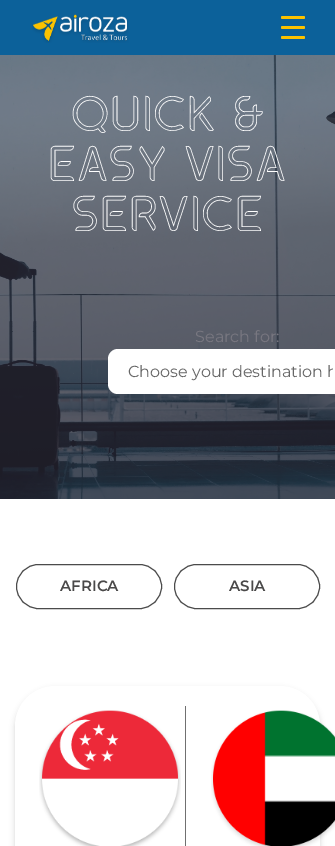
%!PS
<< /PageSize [335 846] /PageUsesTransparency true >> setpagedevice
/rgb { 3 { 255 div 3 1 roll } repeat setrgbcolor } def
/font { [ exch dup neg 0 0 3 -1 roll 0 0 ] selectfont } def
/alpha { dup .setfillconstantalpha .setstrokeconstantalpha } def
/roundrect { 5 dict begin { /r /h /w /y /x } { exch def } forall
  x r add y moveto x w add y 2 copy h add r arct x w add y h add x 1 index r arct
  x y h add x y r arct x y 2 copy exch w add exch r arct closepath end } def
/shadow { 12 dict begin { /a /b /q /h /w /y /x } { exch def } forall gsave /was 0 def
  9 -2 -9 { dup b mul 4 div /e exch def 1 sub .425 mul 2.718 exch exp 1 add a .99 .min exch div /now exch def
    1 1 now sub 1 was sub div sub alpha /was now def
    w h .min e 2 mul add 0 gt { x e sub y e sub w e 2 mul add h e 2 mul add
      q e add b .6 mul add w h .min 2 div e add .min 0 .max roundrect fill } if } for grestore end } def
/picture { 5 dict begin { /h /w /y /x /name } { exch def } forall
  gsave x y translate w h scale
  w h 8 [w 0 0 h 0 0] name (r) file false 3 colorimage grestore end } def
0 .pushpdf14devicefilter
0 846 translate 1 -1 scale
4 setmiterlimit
255 255 255 rgb
0 0 335 846 rectfill
12 97 154 rgb
0 0 335 55 rectfill
(img/1.rgb) 32 14 97 29 picture
252 194 0 rgb
281 26 24 3 1.5 roundrect fill
281 16 24 3 1.5 roundrect fill
281 36 24 3 1.5 roundrect fill
(img/2.rgb) 0 55 335 444 picture
255 255 255 rgb
118 349 moveto 335 349 lineto 335 394 lineto 118 394 lineto 112.5 394 108 389.5 108 384 curveto 108 359 lineto 108 353.5 112.5 349 118 349 curveto closepath fill
75 75 75 rgb
16.5 564.5 145 44 22 roundrect stroke
174.5 564.5 145 44 22 roundrect stroke
0 0 0 rgb
15 689 305 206 40 3 0.16 shadow
255 255 255 rgb
15 686 305 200 40 roundrect fill
112 112 112 rgb
185 706 1 140 rectfill
(img/3.rgb) 39 710 142 136 picture
(img/4.rgb) 211 710 124 136 picture
/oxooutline-Regular 48 font
255 255 255 rgb
[
  [(QUICK &) 71 131]
  [(EASY VISA) 48 181]
  [(SERVICE) 71 231]
] { aload pop moveto show } forall
/Montserrat-Regular 16 font
120 119 128 rgb
195 342 moveto (Search for:) show
gsave
128 362 205 19 rectclip
101 101 101 rgb
128 377 moveto (Choose your destination h) show
grestore
/Montserrat-SemiBold 15 font
74 73 73 rgb
60 591 moveto (AFRICA) show
229 591 moveto (ASIA) show
.poppdf14devicefilter showpage
